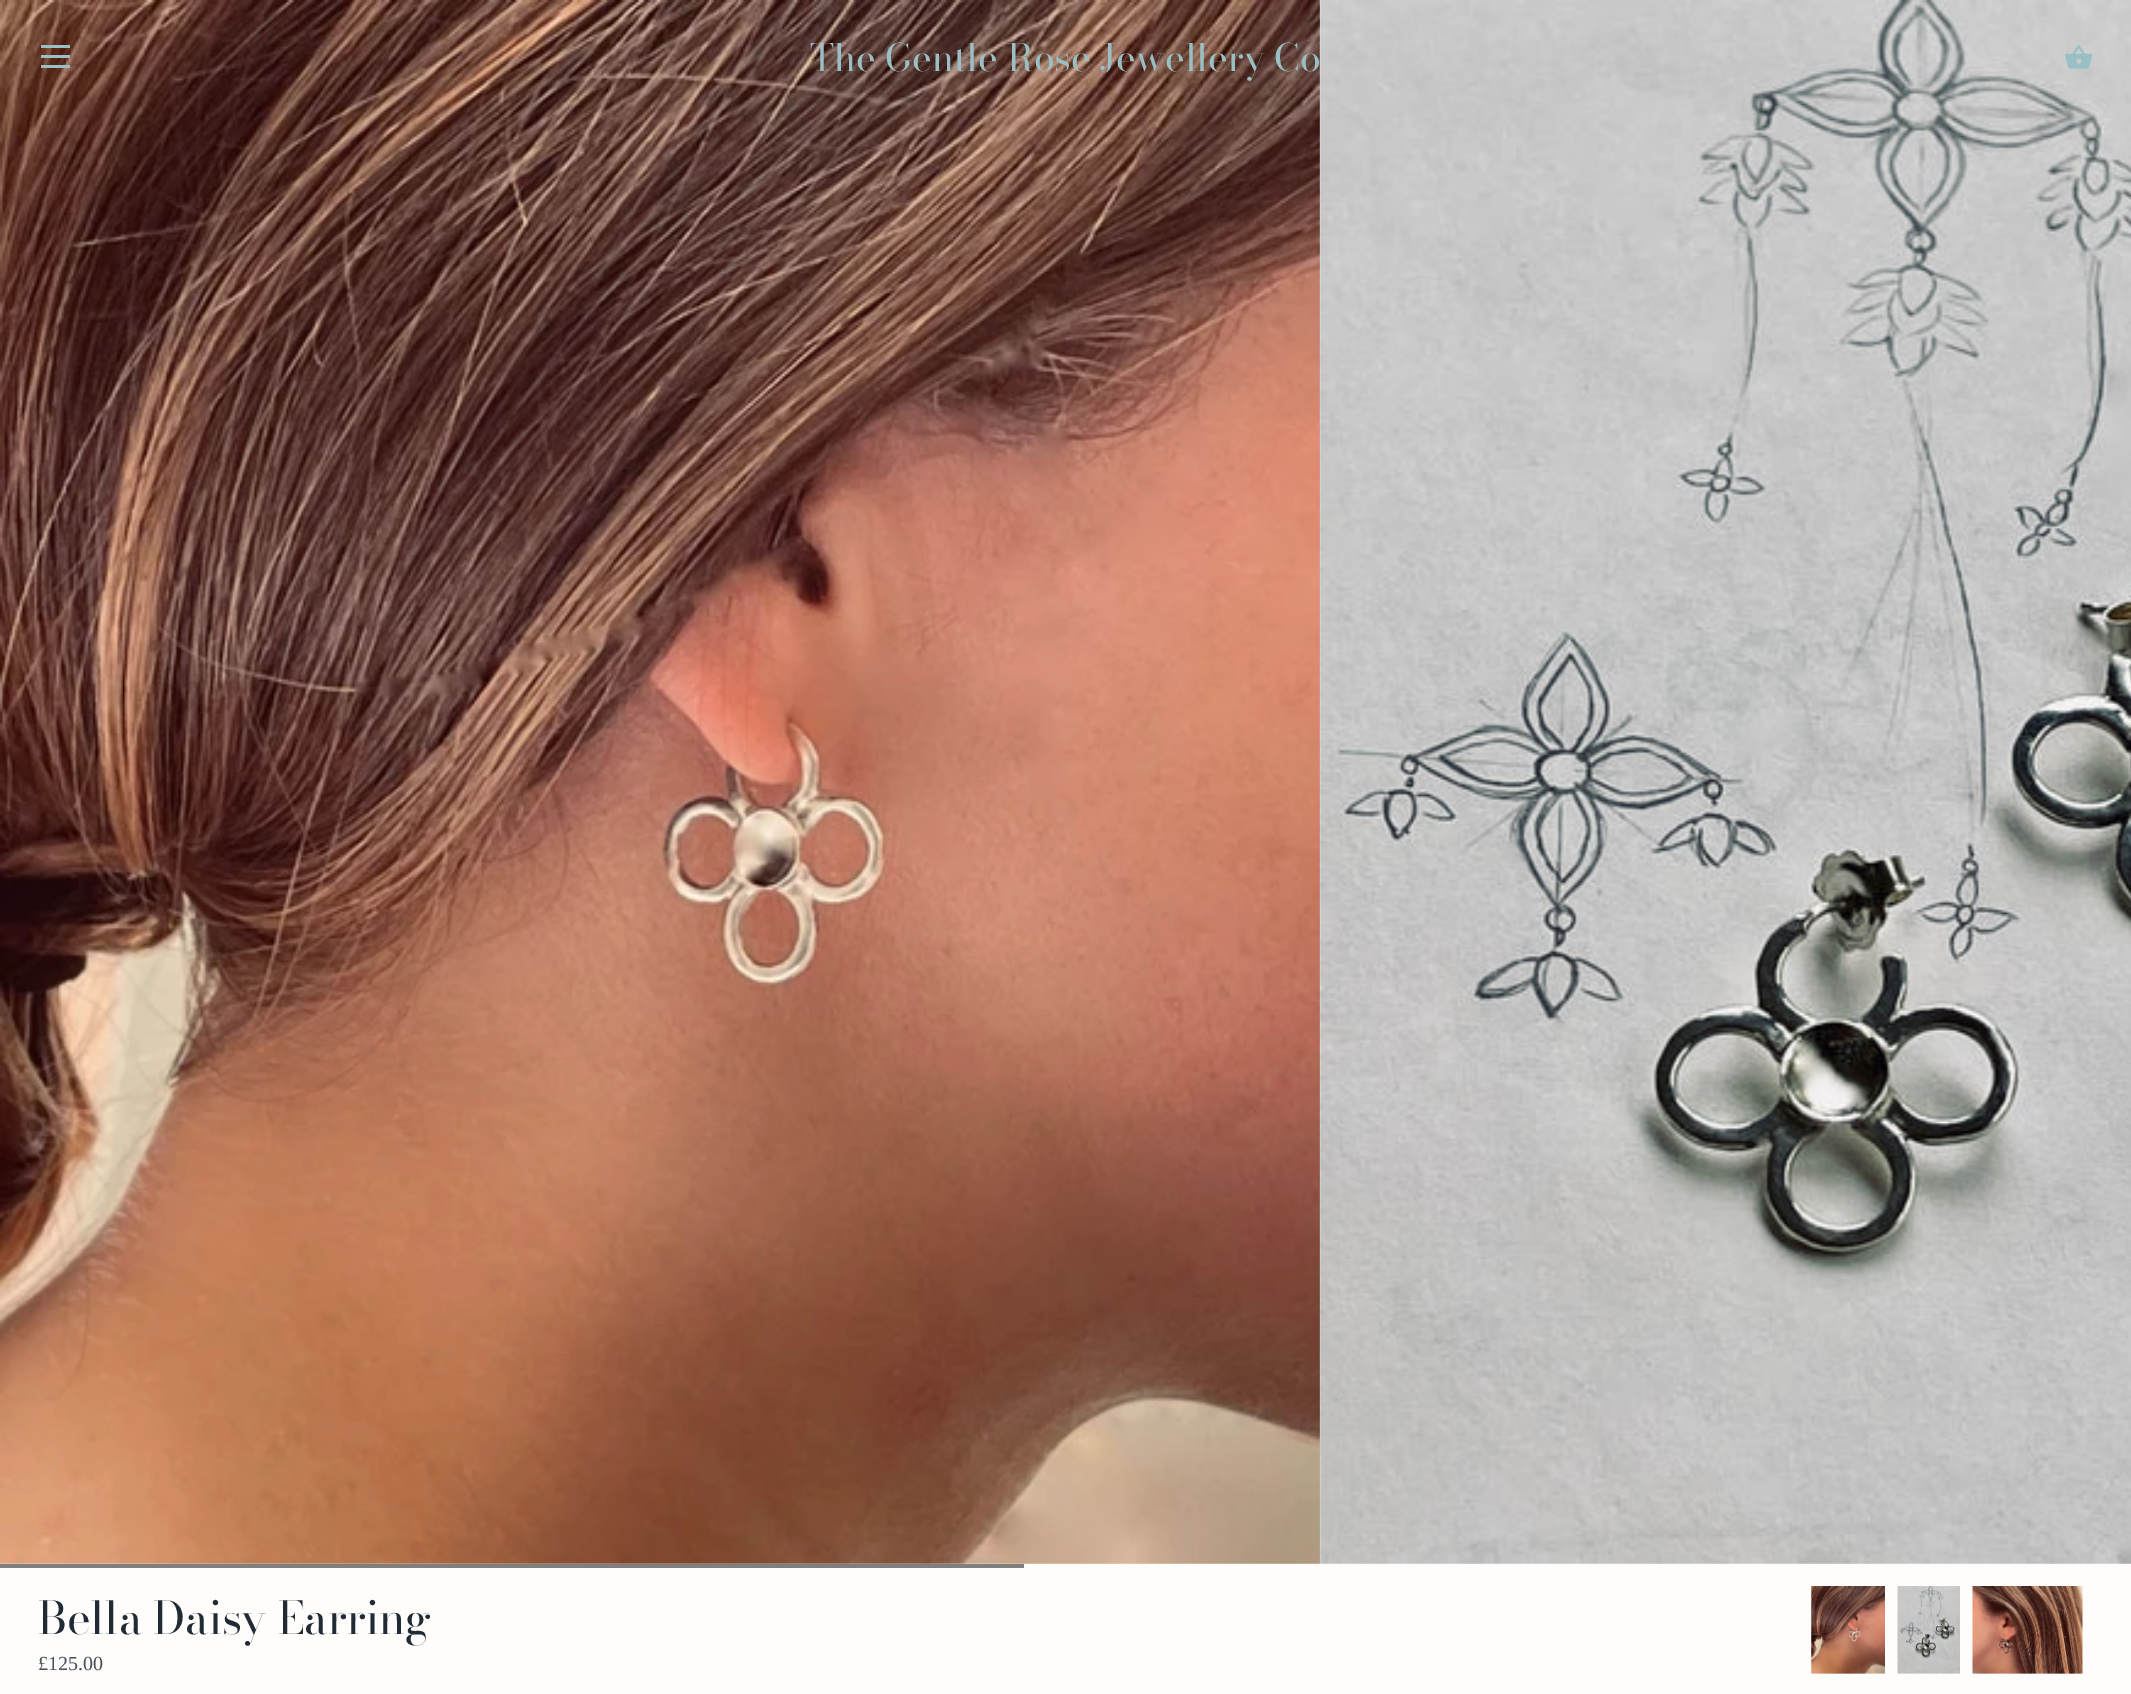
%!PS
<< /PageSize [2131 1694] >> setpagedevice
/rgb { 3 { 255 div 3 1 roll } repeat setrgbcolor } def
/font { [ exch dup neg 0 0 3 -1 roll 0 0 ] selectfont } def
/picture { 5 dict begin { /h /w /y /x /name } { exch def } forall
  gsave x y translate w h scale
  w h 8 [w 0 0 h 0 0] name (r) file false 3 colorimage grestore end } def
0 1694 translate 1 -1 scale
4 setmiterlimit
255 253 251 rgb
0 0 2131 1694 rectfill
(img/2.rgb) 0 0 1320 1564 picture
[
  [41 45 29 3 154 192 197]
  [41 55 29 3 154 192 197]
  [41 65 29 3 154 192 197]
] { aload pop rgb rectfill } forall
(img/3.rgb) 1319 0 812 1564 picture
(img/1.rgb) 2065 45 28 24 picture
128 127 127 rgb
0 1564 1024 4 rectfill
(img/4.rgb) 1811 1586 74 88 picture
(img/5.rgb) 1897 1586 63 88 picture
(img/6.rgb) 1972 1586 111 88 picture
/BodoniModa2-Regular 37.5 font
154 192 197 rgb
810 71 moveto (The Gentle Rose Jewellery Co) show
/BodoniModa-Regular 45 font
33 43 54 rgb
38 1634 moveto (Bella Daisy Earring) show
/LiberationSerif-Regular 20 font
69 79 91 rgb
38 1670 moveto (£125.00) show
showpage
